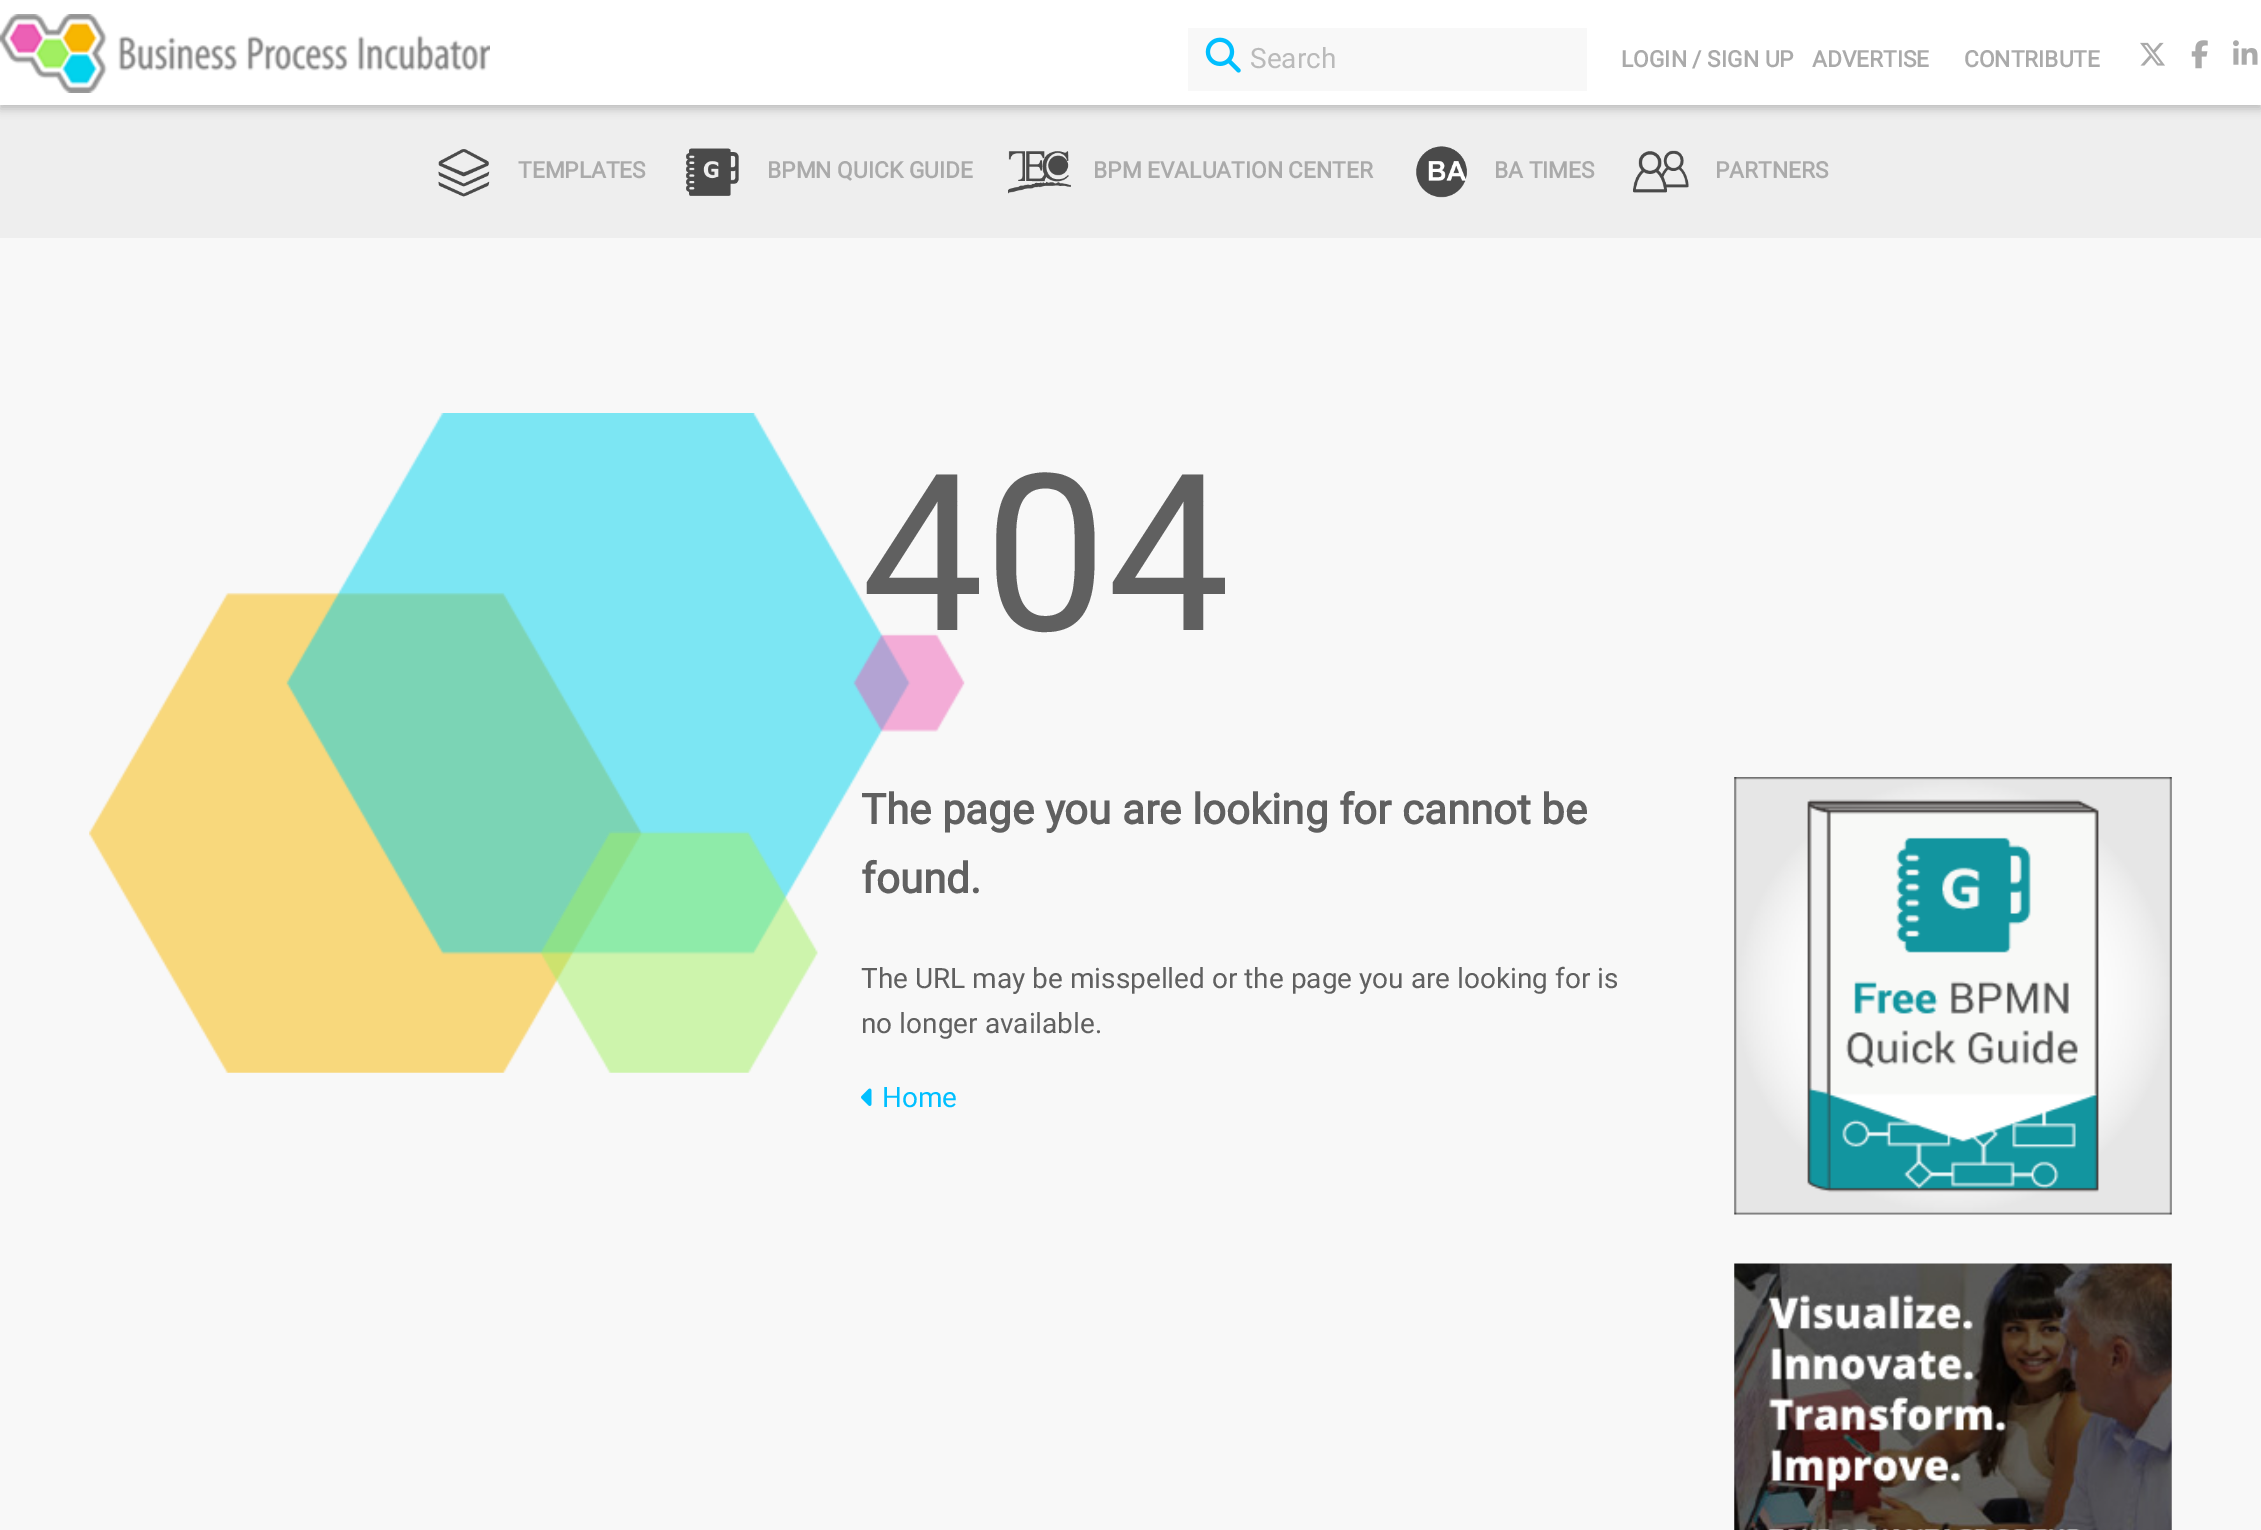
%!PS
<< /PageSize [2261 1530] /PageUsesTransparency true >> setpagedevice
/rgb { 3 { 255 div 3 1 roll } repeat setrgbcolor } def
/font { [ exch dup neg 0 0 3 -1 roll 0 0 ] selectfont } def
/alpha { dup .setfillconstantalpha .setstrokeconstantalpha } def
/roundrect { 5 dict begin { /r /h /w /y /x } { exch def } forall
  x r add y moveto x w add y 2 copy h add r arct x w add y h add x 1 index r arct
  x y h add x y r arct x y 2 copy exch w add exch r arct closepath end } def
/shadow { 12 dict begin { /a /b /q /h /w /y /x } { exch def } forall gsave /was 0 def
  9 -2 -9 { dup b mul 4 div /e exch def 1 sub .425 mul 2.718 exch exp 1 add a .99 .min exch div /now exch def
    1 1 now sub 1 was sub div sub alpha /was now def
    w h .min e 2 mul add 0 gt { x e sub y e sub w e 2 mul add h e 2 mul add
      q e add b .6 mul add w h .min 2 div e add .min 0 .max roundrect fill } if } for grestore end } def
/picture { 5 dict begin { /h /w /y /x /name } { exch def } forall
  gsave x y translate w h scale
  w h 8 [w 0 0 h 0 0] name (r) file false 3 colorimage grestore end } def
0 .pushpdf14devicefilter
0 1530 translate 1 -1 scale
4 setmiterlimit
248 248 248 rgb
0 0 2261 1530 rectfill
238 238 238 rgb
0 105 2261 133 rectfill
0 0 0 rgb
0 4 2261 105 0 4.5 0.2 shadow
255 255 255 rgb
0 0 2261 105 rectfill
(img/1.rgb) 0 14 490 79 picture
248 248 248 rgb
1188 28 399 63 rectfill
(img/2.rgb) 1205 37 36 36 picture
(img/3.rgb) 2140 42 25 24 picture
(img/4.rgb) 2191 40 17 29 picture
(img/5.rgb) 2233 40 25 25 picture
(img/6.rgb) 438 149 52 48 picture
(img/7.rgb) 686 148 53 48 picture
(img/8.rgb) 1008 151 63 43 picture
(img/9.rgb) 1416 146 51 52 picture
(img/10.rgb) 1633 150 56 43 picture
(img/11.rgb) 89 413 876 660 picture
(img/12.rgb) 861 1088 11 18 picture
(img/13.rgb) 1734 777 438 438 picture
(img/14.rgb) 1734 1263 438 267 picture
/Roboto-Regular 28 font
186 186 186 rgb
1250 68 moveto (Search) show
/Roboto-Bold 22.75 font
170 170 170 rgb
[
  [(LOGIN / SIGN UP) 1621 67]
  [(ADVERTISE) 1812 67]
  [(CONTRIBUTE) 1964 67]
  [(TEMPLATES) 518 178]
  [(BPMN QUICK GUIDE) 767 178]
  [(BPM EVALUATION CENTER) 1093 178]
  [(BA TIMES) 1494 178]
  [(PARTNERS) 1715 178]
] { aload pop moveto show } forall
/Roboto-Regular 219 font
96 96 96 rgb
861 630 moveto (404) show
/Roboto-Bold 42 font
861 824 moveto (The page you are looking for cannot be) show
861 893 moveto (found.) show
/Roboto-Regular 28 font
861 988 moveto (The URL may be misspelled or the page you are looking for is) show
861 1033 moveto (no longer available.) show
0 191 255 rgb
882 1107 moveto (Home) show
.poppdf14devicefilter showpage
